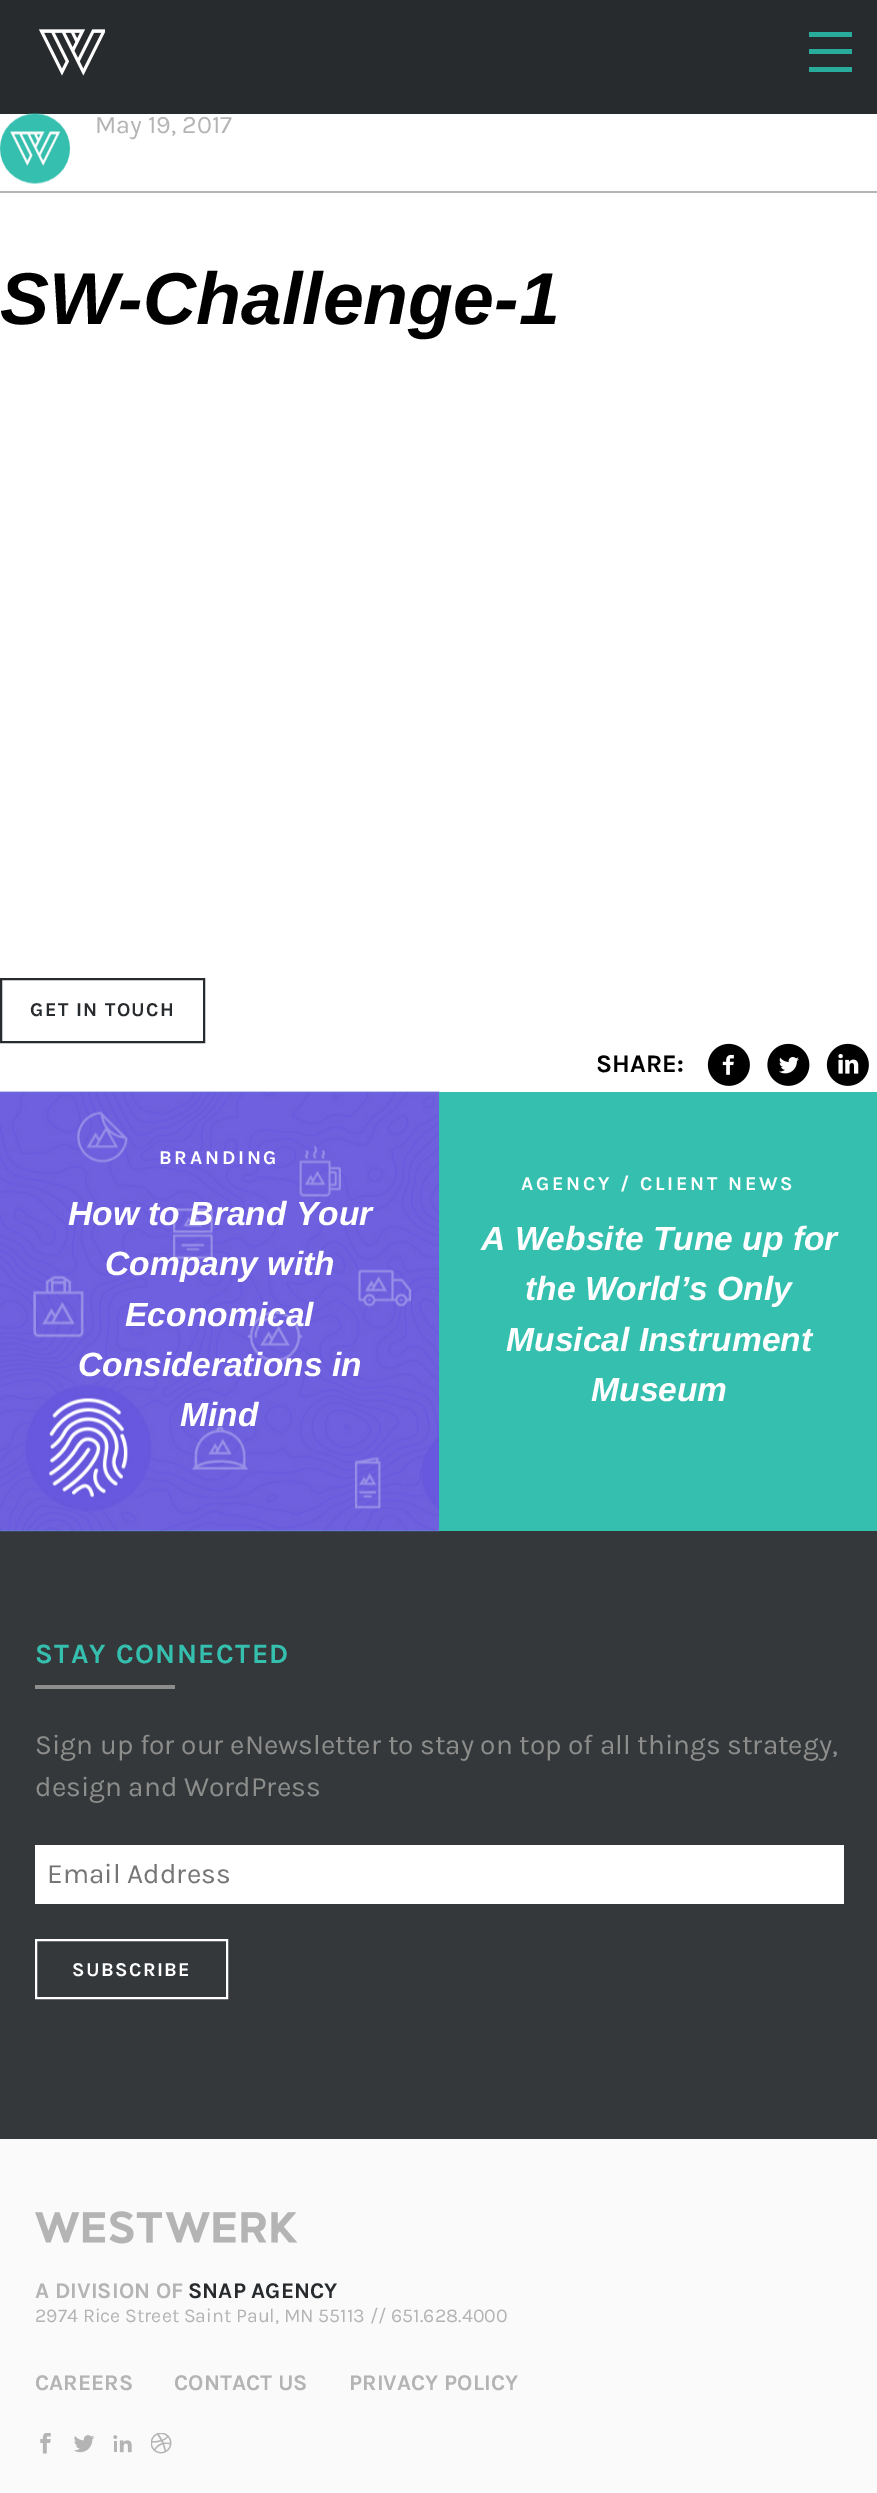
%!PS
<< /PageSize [877 2493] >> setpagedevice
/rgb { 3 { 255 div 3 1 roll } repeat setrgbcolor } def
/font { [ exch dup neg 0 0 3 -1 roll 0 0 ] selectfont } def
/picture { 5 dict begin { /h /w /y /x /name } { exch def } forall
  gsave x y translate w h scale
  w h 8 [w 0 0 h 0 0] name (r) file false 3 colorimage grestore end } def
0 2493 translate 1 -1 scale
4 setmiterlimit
255 255 255 rgb
0 0 877 2493 rectfill
40 43 46 rgb
0 0 877 114 rectfill
(img/1.rgb) 38 29 67 47 picture
[
  [809 32 43 5 41 172 156]
  [809 49 43 5 41 172 156]
  [809 67 43 5 41 172 156]
] { aload pop rgb rectfill } forall
(img/2.rgb) 0 113 70 71 picture
180 180 180 rgb
0 191 877 2 rectfill
40 43 46 rgb
2 setlinewidth
1 979 203 63 rectstroke
(img/3.rgb) 707 1043 43 43 picture
(img/4.rgb) 767 1043 43 43 picture
(img/5.rgb) 826 1043 43 43 picture
53 56 59 rgb
0 1531 877 608 rectfill
(img/6.rgb) 0 1091 440 441 picture
[
  [439 1092 438 439 53 191 174]
  [35 1685 140 4 141 141 140]
  [35 1845 809 59 255 255 255]
] { aload pop rgb rectfill } forall
36 1940 191 58 rectstroke
250 250 250 rgb
0 2139 877 354 rectfill
(img/7.rgb) 35 2211 263 33 picture
(img/8.rgb) 40 2433 11 21 picture
(img/9.rgb) 74 2435 21 18 picture
(img/10.rgb) 113 2435 19 18 picture
(img/11.rgb) 151 2433 21 21 picture
/Karla-Regular 25.25 font
180 180 180 rgb
95 133 moveto (May 19, 2017) show
/LiberationSans-BoldItalic 73.5 font
0 0 0 rgb
0 324 moveto (SW-Challenge-1) show
/Karla-Bold 19.6 font
40 43 46 rgb
30 1016 moveto 1.4 0 (GET IN TOUCH) ashow
/Karla-Bold 25.25 font
0 0 0 rgb
596 1072 moveto (SHARE:) show
/Karla-Bold 19.6 font
255 255 255 rgb
159 1164 moveto 2.75 0 (BRANDING) ashow
/LiberationSans-BoldItalic 33.6 font
[
  [(How to Brand Your) 68 1225]
  [(Company with) 105 1275]
  [(Economical) 125 1326]
  [(Considerations in) 78 1376]
  [(Mind) 180 1426]
] { aload pop moveto show } forall
/Karla-Bold 19.6 font
521 1190 moveto 2.75 0 (AGENCY / CLIENT NEWS) ashow
/LiberationSans-BoldItalic 33.6 font
[
  [(A Website Tune up for) 481 1250]
  [(the World’s Only) 525 1300]
  [(Musical Instrument) 506 1351]
  [(Museum) 591 1401]
] { aload pop moveto show } forall
/Karla-Bold 28 font
53 191 174 rgb
35 1663 moveto 1.4 0 (STAY CONNECTED) ashow
/Karla-Regular 28 font
141 141 140 rgb
35 1754 moveto (Sign up for our eNewsletter to stay on top of all things strategy,) show
35 1796 moveto (design and WordPress) show
117 117 117 rgb
47 1883 moveto (Email Address) show
/Karla-Bold 19.6 font
255 255 255 rgb
72 1976 moveto 1.4 0 (SUBSCRIBE) ashow
/Karla-Bold 22.5 font
180 180 180 rgb
35 2298 moveto (A DIVISION OF) show
40 43 46 rgb
188 2298 moveto (SNAP AGENCY) show
/Karla-Regular 19.6 font
180 180 180 rgb
35 2322 moveto (2974 Rice Street Saint Paul, MN 55113 // 651.628.4000) show
/Karla-Bold 22.5 font
[
  [(CAREERS) 35 2390]
  [(CONTACT US) 174 2390]
  [(PRIVACY POLICY) 349 2390]
] { aload pop moveto show } forall
showpage
